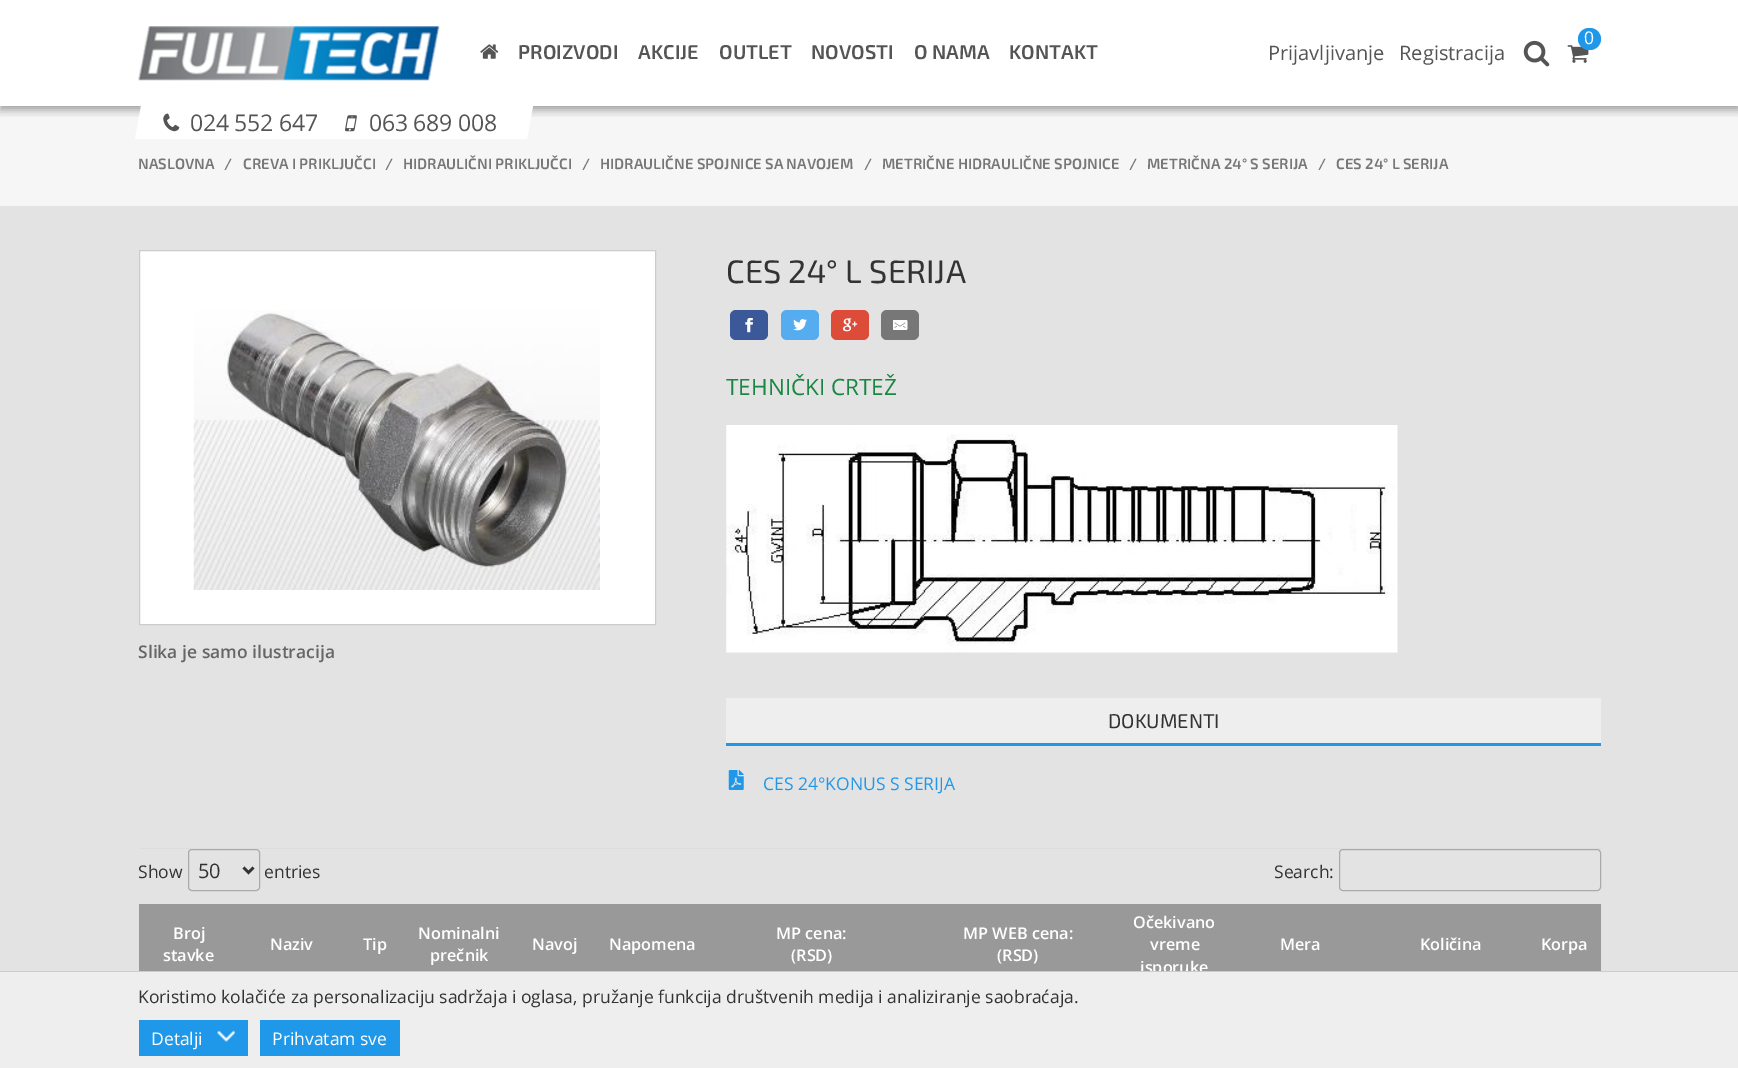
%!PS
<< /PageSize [1738 1068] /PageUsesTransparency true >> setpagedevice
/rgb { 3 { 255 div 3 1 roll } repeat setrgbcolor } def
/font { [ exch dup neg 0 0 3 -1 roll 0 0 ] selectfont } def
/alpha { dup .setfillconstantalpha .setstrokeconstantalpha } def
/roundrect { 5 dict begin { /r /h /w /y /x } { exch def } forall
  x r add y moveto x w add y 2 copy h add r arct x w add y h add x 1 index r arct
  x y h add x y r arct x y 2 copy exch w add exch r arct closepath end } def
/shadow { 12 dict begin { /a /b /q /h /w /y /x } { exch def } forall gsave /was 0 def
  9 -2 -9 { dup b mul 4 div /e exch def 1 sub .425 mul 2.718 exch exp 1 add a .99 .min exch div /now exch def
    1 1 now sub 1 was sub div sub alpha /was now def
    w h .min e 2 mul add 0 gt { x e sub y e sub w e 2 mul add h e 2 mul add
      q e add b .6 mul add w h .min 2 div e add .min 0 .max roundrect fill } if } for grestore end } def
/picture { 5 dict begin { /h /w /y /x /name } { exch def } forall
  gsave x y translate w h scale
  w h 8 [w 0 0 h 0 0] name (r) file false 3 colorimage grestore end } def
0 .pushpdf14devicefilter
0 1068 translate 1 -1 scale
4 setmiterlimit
255 255 255 rgb
0 0 1738 1068 rectfill
246 246 246 rgb
0 106 1738 100 rectfill
gsave
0 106 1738 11 rectclip
0 0 0 rgb
0 4 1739 106 0 4.5 0.35 shadow
grestore
(img/1.rgb) 138 26 302 55 picture
(img/2.rgb) 1567 45 22 18 picture
32 152 233 rgb
1578 28 23 22 11 roundrect fill
(img/3.rgb) 1523 40 27 27 picture
255 255 255 rgb
141 106 moveto 533 106 lineto 527 139 lineto 135 139 lineto closepath fill
(img/4.rgb) 163 113 17 19 picture
(img/5.rgb) 345 115 12 17 picture
(img/6.rgb) 480 44 19 15 picture
227 227 227 rgb
0 206 1738 765 rectfill
255 255 255 rgb
139.5 250.5 moveto 655.5 250.5 lineto 655.5 624.5 lineto 139.5 624.5 lineto closepath gsave fill grestore
204 204 204 rgb
stroke
(img/7.rgb) 193 310 407 280 picture
59 89 152 rgb
730 310 38 30 6 roundrect fill
(img/8.rgb) 745 318 8 15 picture
85 172 238 rgb
781 310 38 30 6 roundrect fill
(img/9.rgb) 793 319 14 12 picture
221 75 57 rgb
831 310 38 30 6 roundrect fill
(img/10.rgb) 843 318 15 14 picture
119 119 119 rgb
881 310 38 30 6 roundrect fill
(img/11.rgb) 893 320 15 10 picture
(img/12.rgb) 726 425 672 228 picture
238 238 238 rgb
726 698 875 45 rectfill
32 152 233 rgb
726 743 875 3 rectfill
(img/13.rgb) 728 770 16 20 picture
221 221 221 rgb
139 848 1462 1 rectfill
170 170 170 rgb
188.5 849.5 71 41 3.5 roundrect stroke
51 51 51 rgb
2.5 setlinewidth
243.5 867.5 moveto 248.5 872.5 lineto 253.5 867.5 lineto stroke
170 170 170 rgb
1 setlinewidth
1339.5 849.5 261 41 3.5 roundrect stroke
153 153 153 rgb
139 904 1462 67 rectfill
/OpenSans-Regular 17.5 font
255 255 255 rgb
1584 44 moveto (0) show
/OpenSans-Regular 23 font
85 85 85 rgb
190 131 moveto -0.25 0 (024 552 647) ashow
369 131 moveto -0.25 0 (063 689 008) ashow
/Exo2-SemiBold 20 font
[
  [(PROIZVODI) 518 59]
  [(AKCIJE) 638 59]
  [(OUTLET) 719 59]
  [(NOVOSTI) 811 59]
  [(O NAMA) 914 59]
  [(KONTAKT) 1009 59]
] { aload pop moveto show } forall
/OpenSans-Regular 20 font
1268 60 moveto (Prijavljivanje) show
1399 60 moveto (Registracija) show
/Exo2-SemiBold 15 font
119 119 119 rgb
[
  [(NASLOVNA) 138 169]
  [(/) 224 169]
  [(CREVA I PRIKLJUČCI) 243 169]
  [(/) 385 169]
  [(HIDRAULIČNI PRIKLJUČCI) 403 169]
  [(/) 582 169]
  [(HIDRAULIČNE SPOJNICE SA NAVOJEM) 600 169]
  [(/) 864 169]
  [(METRIČNE HIDRAULIČNE SPOJNICE) 882 169]
  [(/) 1129 169]
  [(METRIČNA 24° S SERIJA) 1147 169]
  [(/) 1318 169]
  [(CES 24° L SERIJA) 1336 169]
] { aload pop moveto show } forall
/OpenSans-SemiBold 17.5 font
102 102 102 rgb
138 658 moveto (Slika je samo ilustracija) show
/Exo2-Regular 32.5 font
51 51 51 rgb
726 283 moveto (CES 24° L SERIJA) show
/OpenSans-Regular 22.5 font
25 134 65 rgb
726 395 moveto (TEHNIČKI CRTEŽ) show
/Exo2-Regular 20 font
51 51 51 rgb
1108 728 moveto (DOKUMENTI) show
/OpenSans-Regular 17.5 font
32 152 233 rgb
763 790 moveto (CES 24°KONUS S SERIJA) show
51 51 51 rgb
138 878 moveto (Show) show
/OpenSans-Regular 20 font
198 878 moveto (50) show
/OpenSans-Regular 17.5 font
264 878 moveto (entries) show
1274 878 moveto (Search:) show
/OpenSans-SemiBold 16.25 font
255 255 255 rgb
[
  [(Broj) 173 939]
  [(stavke) 163 961]
  [(Naziv) 270 950]
  [(Tip) 363 950]
  [(Nominalni) 418 939]
  [(prečnik) 430 961]
  [(Navoj) 532 950]
  [(Napomena) 609 950]
  [(MP cena:) 776 939]
  [(\(RSD\)) 791 961]
  [(MP WEB cena:) 963 939]
  [(\(RSD\)) 997 961]
  [(Očekivano) 1133 928]
  [(vreme) 1150 950]
  [(isporuke) 1140 973]
  [(Mera) 1280 950]
  [(Količina) 1420 950]
  [(Korpa) 1541 950]
] { aload pop moveto show } forall
238 238 238 rgb
0 972 1738 96 rectfill
204 204 204 rgb
0 971 1738 1 rectfill
/OpenSans-Regular 17.5 font
51 51 51 rgb
138 1003 moveto (Koristimo kolačiće za personalizaciju sadržaja i oglasa, pružanje funkcija društvenih medija i analiziranje saobraćaja.) show
32 152 233 rgb
139 1020 109 36 rectfill
255 255 255 rgb
151 1045 moveto (Detalji) show
(img/14.rgb) 217 1030 19 12 picture
32 152 233 rgb
260 1020 140 36 rectfill
255 255 255 rgb
272 1045 moveto (Prihvatam sve) show
.poppdf14devicefilter showpage
